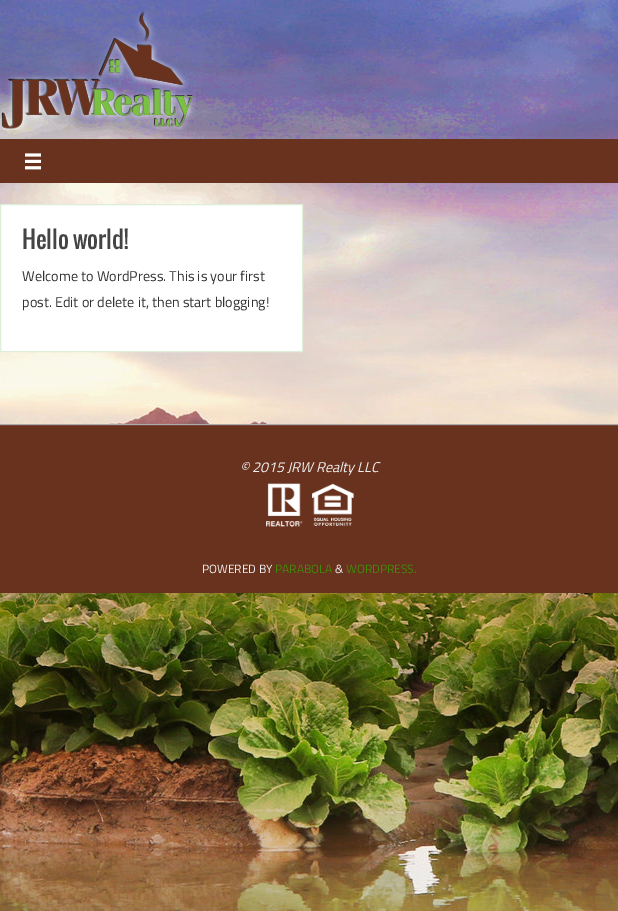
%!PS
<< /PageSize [618 911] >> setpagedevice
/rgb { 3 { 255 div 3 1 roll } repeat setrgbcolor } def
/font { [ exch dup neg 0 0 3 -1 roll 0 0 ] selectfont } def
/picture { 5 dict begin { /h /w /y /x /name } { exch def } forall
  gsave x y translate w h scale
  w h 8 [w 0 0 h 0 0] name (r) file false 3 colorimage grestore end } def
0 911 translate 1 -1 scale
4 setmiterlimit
255 255 255 rgb
0 0 618 911 rectfill
(img/1.rgb) 0 0 618 911 picture
(img/2.rgb) 0 11 196 119 picture
105 50 30 rgb
0 139 618 44 rectfill
(img/3.rgb) 25 153 16 17 picture
255 255 255 rgb
0.5 204.5 moveto 302.5 204.5 lineto 302.5 351.5 lineto 0.5 351.5 lineto closepath gsave fill grestore
223 238 215 rgb
stroke
[
  [0 424 618 1 170 170 170]
  [0 426 618 167 105 50 30]
  [0 425 618 1 120 71 53]
] { aload pop rgb rectfill } forall
(img/4.rgb) 266 483 88 44 picture
/Oswald-Regular 23.5 font
68 68 68 rgb
22 249 moveto (Hello world!) show
/TitilliumWeb-Regular 14.25 font
51 51 51 rgb
22 281 moveto (Welcome to WordPress. This is your first) show
22 307 moveto (post. Edit or delete it, then start blogging!) show
/TitilliumWeb-Italic 14.25 font
238 238 238 rgb
240 472 moveto (© 2015 JRW Realty LLC) show
/TitilliumWeb-Regular 12 font
202 573 moveto (POWERED BY) show
65 138 8 rgb
275 573 moveto (PARABOLA) show
238 238 238 rgb
335 573 moveto (&) show
65 138 8 rgb
346 573 moveto (WORDPRESS.) show
showpage
